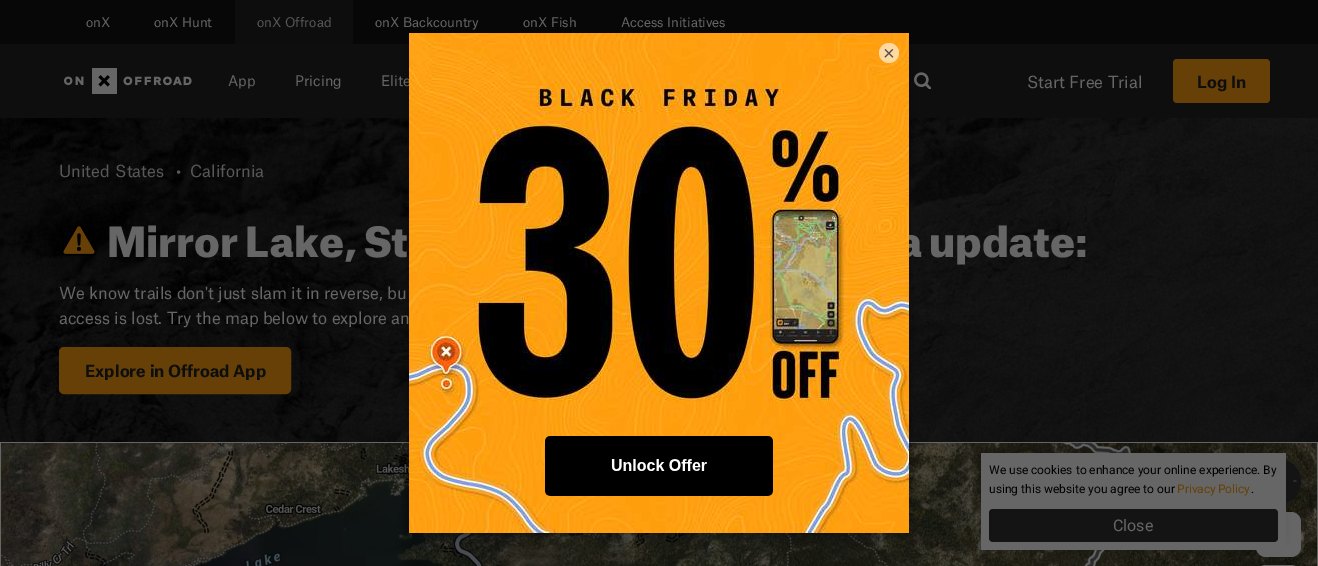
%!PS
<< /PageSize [1318 566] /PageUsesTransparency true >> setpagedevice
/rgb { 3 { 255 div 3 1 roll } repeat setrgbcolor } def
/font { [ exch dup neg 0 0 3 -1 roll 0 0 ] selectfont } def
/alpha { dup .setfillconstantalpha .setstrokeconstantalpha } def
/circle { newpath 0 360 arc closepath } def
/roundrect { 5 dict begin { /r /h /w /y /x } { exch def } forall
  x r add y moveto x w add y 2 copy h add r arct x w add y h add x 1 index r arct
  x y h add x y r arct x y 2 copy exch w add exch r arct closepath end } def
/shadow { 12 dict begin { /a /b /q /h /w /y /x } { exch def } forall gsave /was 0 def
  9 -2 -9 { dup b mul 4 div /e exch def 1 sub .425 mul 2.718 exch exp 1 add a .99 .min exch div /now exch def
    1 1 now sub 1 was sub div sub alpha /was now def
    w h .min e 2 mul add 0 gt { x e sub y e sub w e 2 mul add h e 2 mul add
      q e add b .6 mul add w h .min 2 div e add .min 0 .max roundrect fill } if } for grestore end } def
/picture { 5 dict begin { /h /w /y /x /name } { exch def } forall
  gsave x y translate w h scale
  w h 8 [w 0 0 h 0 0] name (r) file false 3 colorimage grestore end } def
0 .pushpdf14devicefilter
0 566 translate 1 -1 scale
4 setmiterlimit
14 14 14 rgb
0 0 1318 566 rectfill
7 7 7 rgb
0 0 1318 44 rectfill
13 13 13 rgb
235 0 118 44 rectfill
(img/1.rgb) 64 68 128 26 picture
(img/2.rgb) 914 72 17 17 picture
102 64 6 rgb
1173 59 97 44 4 roundrect fill
(img/3.rgb) 0 118 1318 324 picture
(img/4.rgb) 62 225 35 31 picture
60 348 230 45 4 roundrect gsave fill grestore
2 setlinewidth
stroke
102 102 102 rgb
1 setlinewidth
0.5 442.5 1317 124 rectstroke
(img/5.rgb) 1 443 1316 123 picture
20 20 20 rgb
1278.5 481.5 22.5 circle fill
(img/6.rgb) 1293 480 4 2 picture
102 102 102 rgb
1256 512 45 45 10 roundrect fill
1256 565 45 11 10 roundrect fill
0 0 0 rgb
409 33 500 500 0 6 0.3 shadow
409 34 500 500 0 2.5 0.2 shadow
986 453 295 87 0 5 0.25 shadow
102 102 102 rgb
981 453 305 97 rectfill
20 20 20 rgb
989 509 289 33 4 roundrect fill
/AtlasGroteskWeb-Regular 12.75 font
102 102 102 rgb
86 27 moveto (onX) show
154 27 moveto (onX Hunt) show
88 88 88 rgb
257 27 moveto (onX Offroad) show
102 102 102 rgb
[
  [(onX Backcountry) 375 27]
  [(onX Fish) 523 27]
  [(Access Initiatives) 621 27]
] { aload pop moveto show } forall
/AtlasGroteskWeb-Regular 14 font
[
  [(App) 228 86]
  [(Pricing) 295 86]
  [(Elite) 381 86]
] { aload pop moveto show } forall
/AtlasGroteskWeb-Regular 16 font
1027 88 moveto (Start Free Trial) show
/AtlasGroteskWeb-Bold 16 font
14 14 14 rgb
1197 88 moveto (Log In) show
/AtlasGroteskWeb-Regular 16 font
88 88 88 rgb
59 177 moveto 1 0 32 (United States) widthshow
176 177 moveto (•) show
190 177 moveto (California) show
/AtlasGroteskWeb-Black 40 font
102 102 102 rgb
107 257 moveto -1 0 32 (Mirror Lake, St) widthshow
898 257 moveto -1 0 32 (a update:) widthshow
/AtlasGroteskWeb-Regular 16 font
59 299 moveto -0.1 0 32 (We know trails don't just slam it in reverse, bu) widthshow
59 324 moveto (access is lost. Try the map below to explore an) show
/AtlasGroteskWeb-Bold 16 font
14 14 14 rgb
85 377 moveto (Explore in Offroad App) show
(img/7.rgb) 409 33 500 500 picture
0.6 alpha
255 255 255 rgb
889 53 10 circle fill
/LiberationSans-Regular 20 font
1 alpha
82 81 81 rgb
883 60 moveto (×) show
/Roboto-Regular 12 font
0 0 0 rgb
989 474 moveto (We use cookies to enhance your online experience. By) show
989 493 moveto (using this website you agree to our) show
102 64 6 rgb
1177 493 moveto -1 0 32 (Privacy Policy) widthshow
0 0 0 rgb
1251 493 moveto (.) show
/Roboto-Regular 16 font
102 102 102 rgb
1113 531 moveto (Close) show
.poppdf14devicefilter showpage
